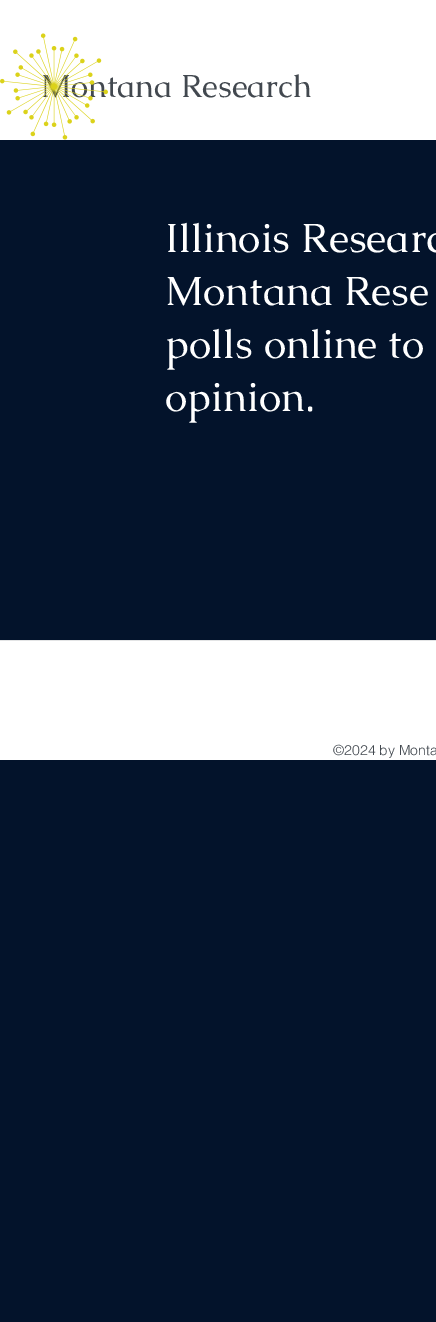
%!PS
<< /PageSize [436 1322] >> setpagedevice
/rgb { 3 { 255 div 3 1 roll } repeat setrgbcolor } def
/font { [ exch dup neg 0 0 3 -1 roll 0 0 ] selectfont } def
/picture { 5 dict begin { /h /w /y /x /name } { exch def } forall
  gsave x y translate w h scale
  w h 8 [w 0 0 h 0 0] name (r) file false 3 colorimage grestore end } def
0 1322 translate 1 -1 scale
4 setmiterlimit
3 19 43 rgb
0 0 436 1322 rectfill
[
  [0 0 436 140 255 255 255]
  [0 641 436 119 255 255 255]
  [0 640 436 1 227 228 229]
] { aload pop rgb rectfill } forall
/Caudex-Regular 32 font
66 72 79 rgb
41 97 moveto (Montana Research) show
(img/1.rgb) 0 33 108 107 picture
/Caudex-Regular 41 font
255 255 255 rgb
[
  [(Illinois Researc) 165 252]
  [(Montana Rese) 165 305]
  [(polls online to) 165 358]
  [(opinion.) 165 411]
] { aload pop moveto show } forall
/helvetica-Light 14 font
66 72 79 rgb
333 755 moveto (©2024 by Monta) show
showpage
